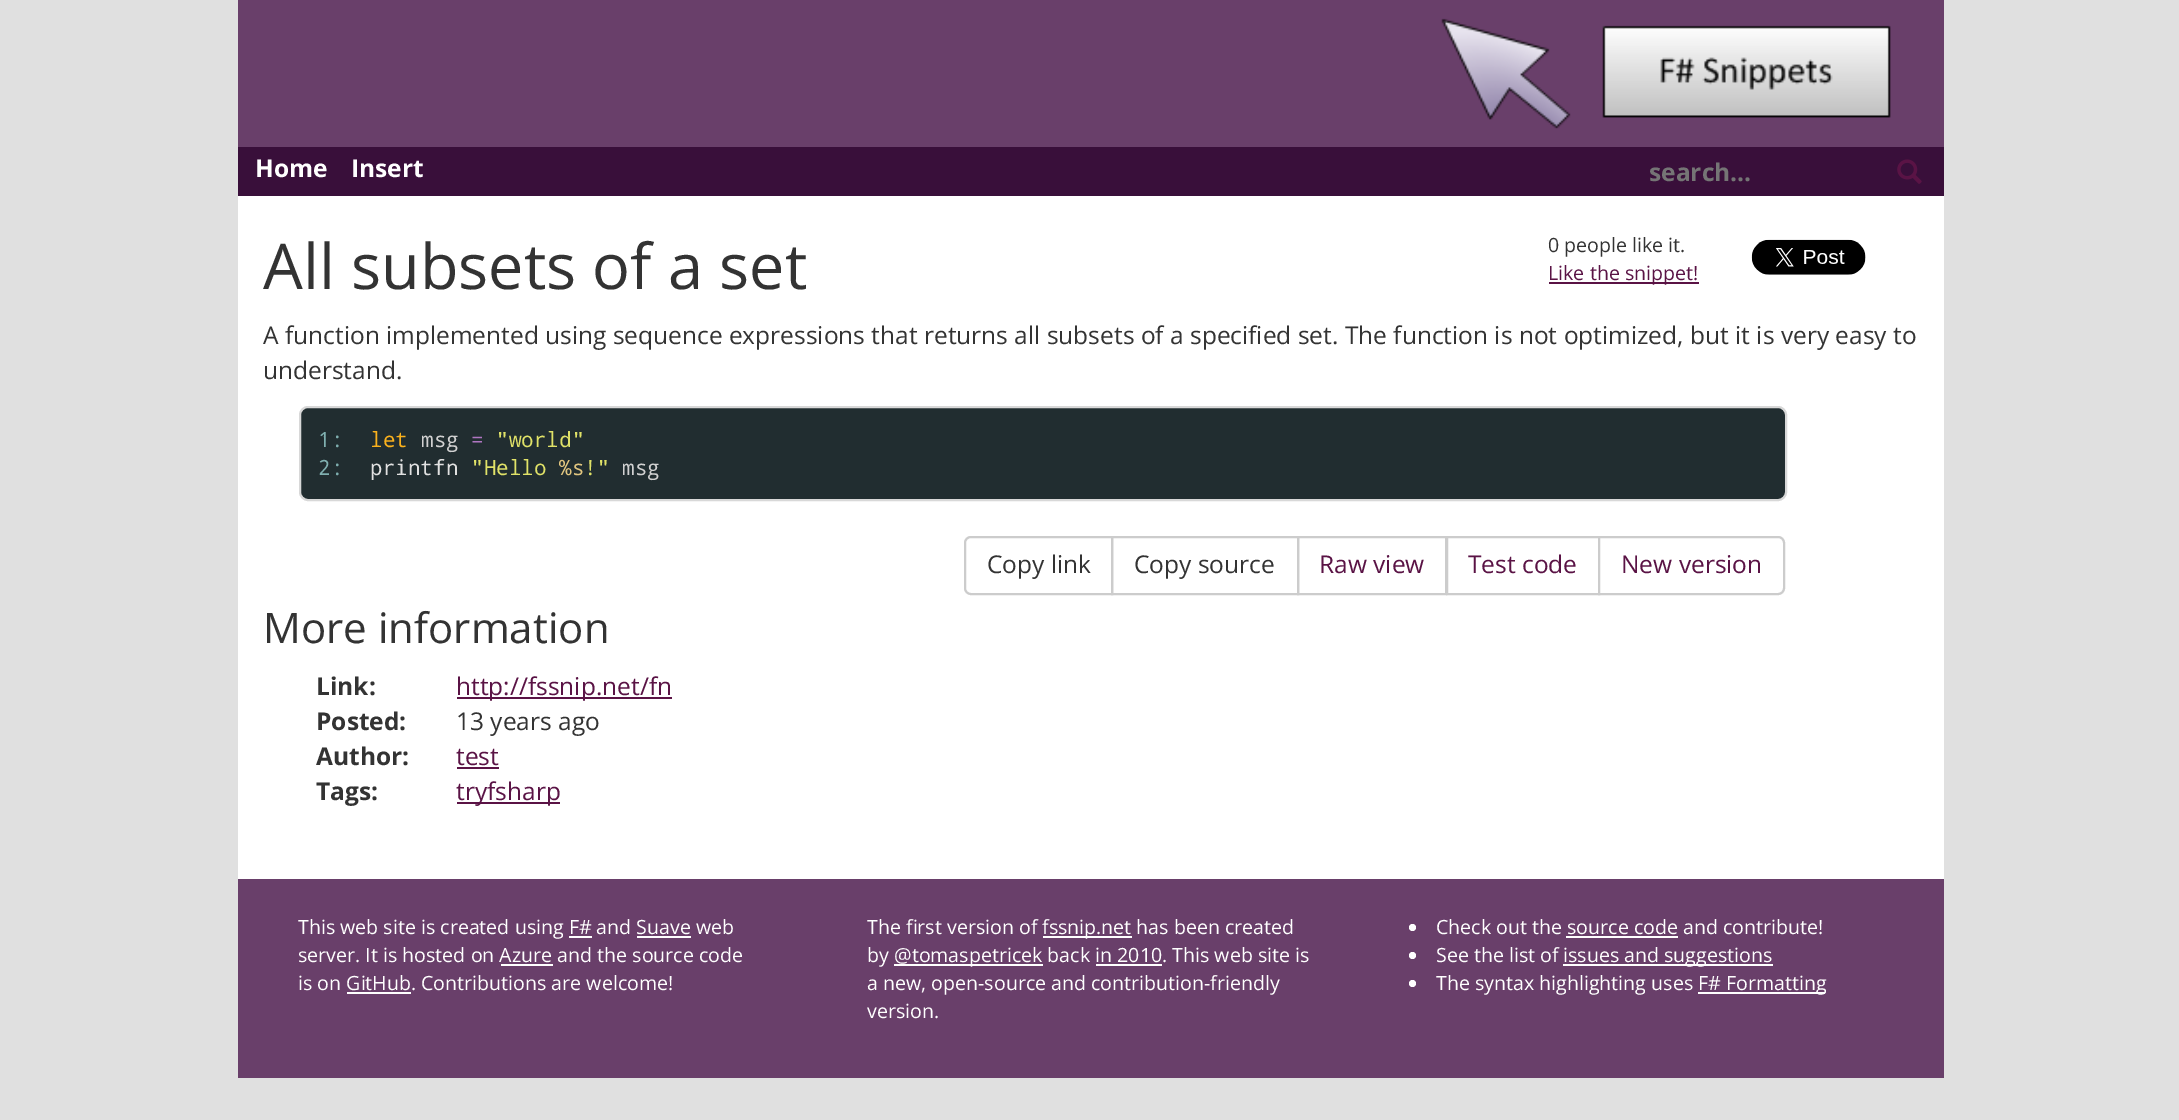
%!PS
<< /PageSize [2179 1120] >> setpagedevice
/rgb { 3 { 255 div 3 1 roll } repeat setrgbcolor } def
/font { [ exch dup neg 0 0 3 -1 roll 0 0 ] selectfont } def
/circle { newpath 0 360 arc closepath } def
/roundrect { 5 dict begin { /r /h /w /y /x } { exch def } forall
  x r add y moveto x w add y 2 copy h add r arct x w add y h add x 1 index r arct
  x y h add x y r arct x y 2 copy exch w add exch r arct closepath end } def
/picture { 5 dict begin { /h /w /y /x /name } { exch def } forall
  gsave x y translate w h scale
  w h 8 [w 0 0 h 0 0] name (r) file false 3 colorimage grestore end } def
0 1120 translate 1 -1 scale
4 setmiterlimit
224 224 224 rgb
0 0 2179 1120 rectfill
105 63 106 rgb
238 0 1706 147 rectfill
(img/1.rgb) 1441 18 450 111 picture
57 15 58 rgb
238 147 1706 49 rectfill
(img/2.rgb) 1897 159 25 25 picture
255 255 255 rgb
238 196 1706 683 rectfill
90 19 69 rgb
1549 282 150 2 rectfill
(img/3.rgb) 1751 239 115 36 picture
33 45 48 rgb
300 407 1486 93 8 roundrect gsave fill grestore
216 216 216 rgb
2 setlinewidth
stroke
204 204 204 rgb
971 537 moveto 1112 537 lineto 1112 594 lineto 971 594 lineto 967.5 594 965 591.5 965 588 curveto 965 543 lineto 965 539.5 967.5 537 971 537 curveto closepath stroke
1112 537 186 57 rectstroke
1298 537 148 57 rectstroke
1447 537 152 57 rectstroke
255 255 255 rgb
1599 537 moveto 1778 537 lineto 1781.5 537 1784 539.5 1784 543 curveto 1784 588 lineto 1784 591.5 1781.5 594 1778 594 curveto 1599 594 lineto closepath gsave fill grestore
204 204 204 rgb
stroke
[
  [457 697 215 2 90 19 69]
  [457 767 42 2 90 19 69]
  [457 802 103 2 90 19 69]
  [238 879 1706 199 105 63 106]
  [569 936 23 2 255 255 255]
  [637 936 54 2 255 255 255]
  [501 964 52 2 255 255 255]
  [347 992 64 2 255 255 255]
  [1043 936 89 2 255 255 255]
  [894 964 149 2 255 255 255]
  [1096 964 66 2 255 255 255]
] { aload pop rgb rectfill } forall
1412.5 927.5 3.5 circle fill
1566 936 112 2 rectfill
1412.5 955.5 3.5 circle fill
1563 964 210 2 rectfill
1412.5 983.5 3.5 circle fill
1698 992 127 2 rectfill
/OpenSans-Bold 24.5 font
255 177 moveto (Home) show
351 177 moveto (Insert) show
117 117 117 rgb
1649 181 moveto (search...) show
/OpenSans-Regular 63 font
51 51 51 rgb
263 289 moveto (All subsets of a set) show
/OpenSans-Regular 19.6 font
1548 252 moveto (0 people like it.) show
90 19 69 rgb
1548 280 moveto (Like the snippet!) show
/OpenSans-Regular 24.5 font
51 51 51 rgb
263 344 moveto (A function implemented using sequence expressions that returns all subsets of a specified set. The function is not optimized, but it is very easy to) show
263 379 moveto (understand.) show
/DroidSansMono-Regular 21 font
128 176 176 rgb
318 447 moveto (1:) show
318 475 moveto (2:) show
250 177 29 rgb
370 447 moveto (let) show
209 209 209 rgb
421 447 moveto (msg) show
175 117 193 rgb
471 447 moveto (=) show
224 226 104 rgb
496 447 moveto ("world") show
225 225 225 rgb
370 475 moveto (printfn) show
224 226 104 rgb
471 475 moveto ("Hello) show
224 197 127 rgb
559 475 moveto (%s) show
224 226 104 rgb
584 475 moveto (!") show
209 209 209 rgb
622 475 moveto (msg) show
/OpenSans-Regular 24.5 font
51 51 51 rgb
987 573 moveto (Copy link) show
1134 573 moveto (Copy source) show
90 19 69 rgb
[
  [(Raw view) 1319 573]
  [(Test code) 1468 573]
  [(New version) 1621 573]
] { aload pop moveto show } forall
/OpenSans-Regular 42 font
51 51 51 rgb
263 643 moveto (More information) show
/OpenSans-Bold 24.5 font
316 695 moveto (Link:) show
/OpenSans-Regular 24.5 font
90 19 69 rgb
456 695 moveto (http://fssnip.net/fn) show
/OpenSans-Bold 24.5 font
51 51 51 rgb
316 730 moveto (Posted:) show
/OpenSans-Regular 24.5 font
456 730 moveto (13 years ago) show
/OpenSans-Bold 24.5 font
316 765 moveto (Author:) show
/OpenSans-Regular 24.5 font
90 19 69 rgb
456 765 moveto (test) show
/OpenSans-Bold 24.5 font
51 51 51 rgb
316 800 moveto (Tags:) show
/OpenSans-Regular 24.5 font
90 19 69 rgb
456 800 moveto (tryfsharp) show
/OpenSans-Regular 19.6 font
255 255 255 rgb
[
  [(This web site is created using F# and Suave web) 298 934]
  [(server. It is hosted on Azure and the source code) 298 962]
  [(is on GitHub. Contributions are welcome!) 298 990]
  [(The first version of) 867 934]
  [(fssnip.net has been created) 1042 934]
  [(by) 867 962]
  [(@tomaspetricek back in 2010. This web site is) 894 962]
  [(a new, open-source and contribution-friendly) 867 990]
  [(version.) 867 1018]
  [(Check out the source code and contribute!) 1436 934]
  [(See the list of) 1436 962]
  [(issues and suggestions) 1563 962]
  [(The syntax highlighting uses) 1436 990]
  [(F# Formatting) 1698 990]
] { aload pop moveto show } forall
showpage
